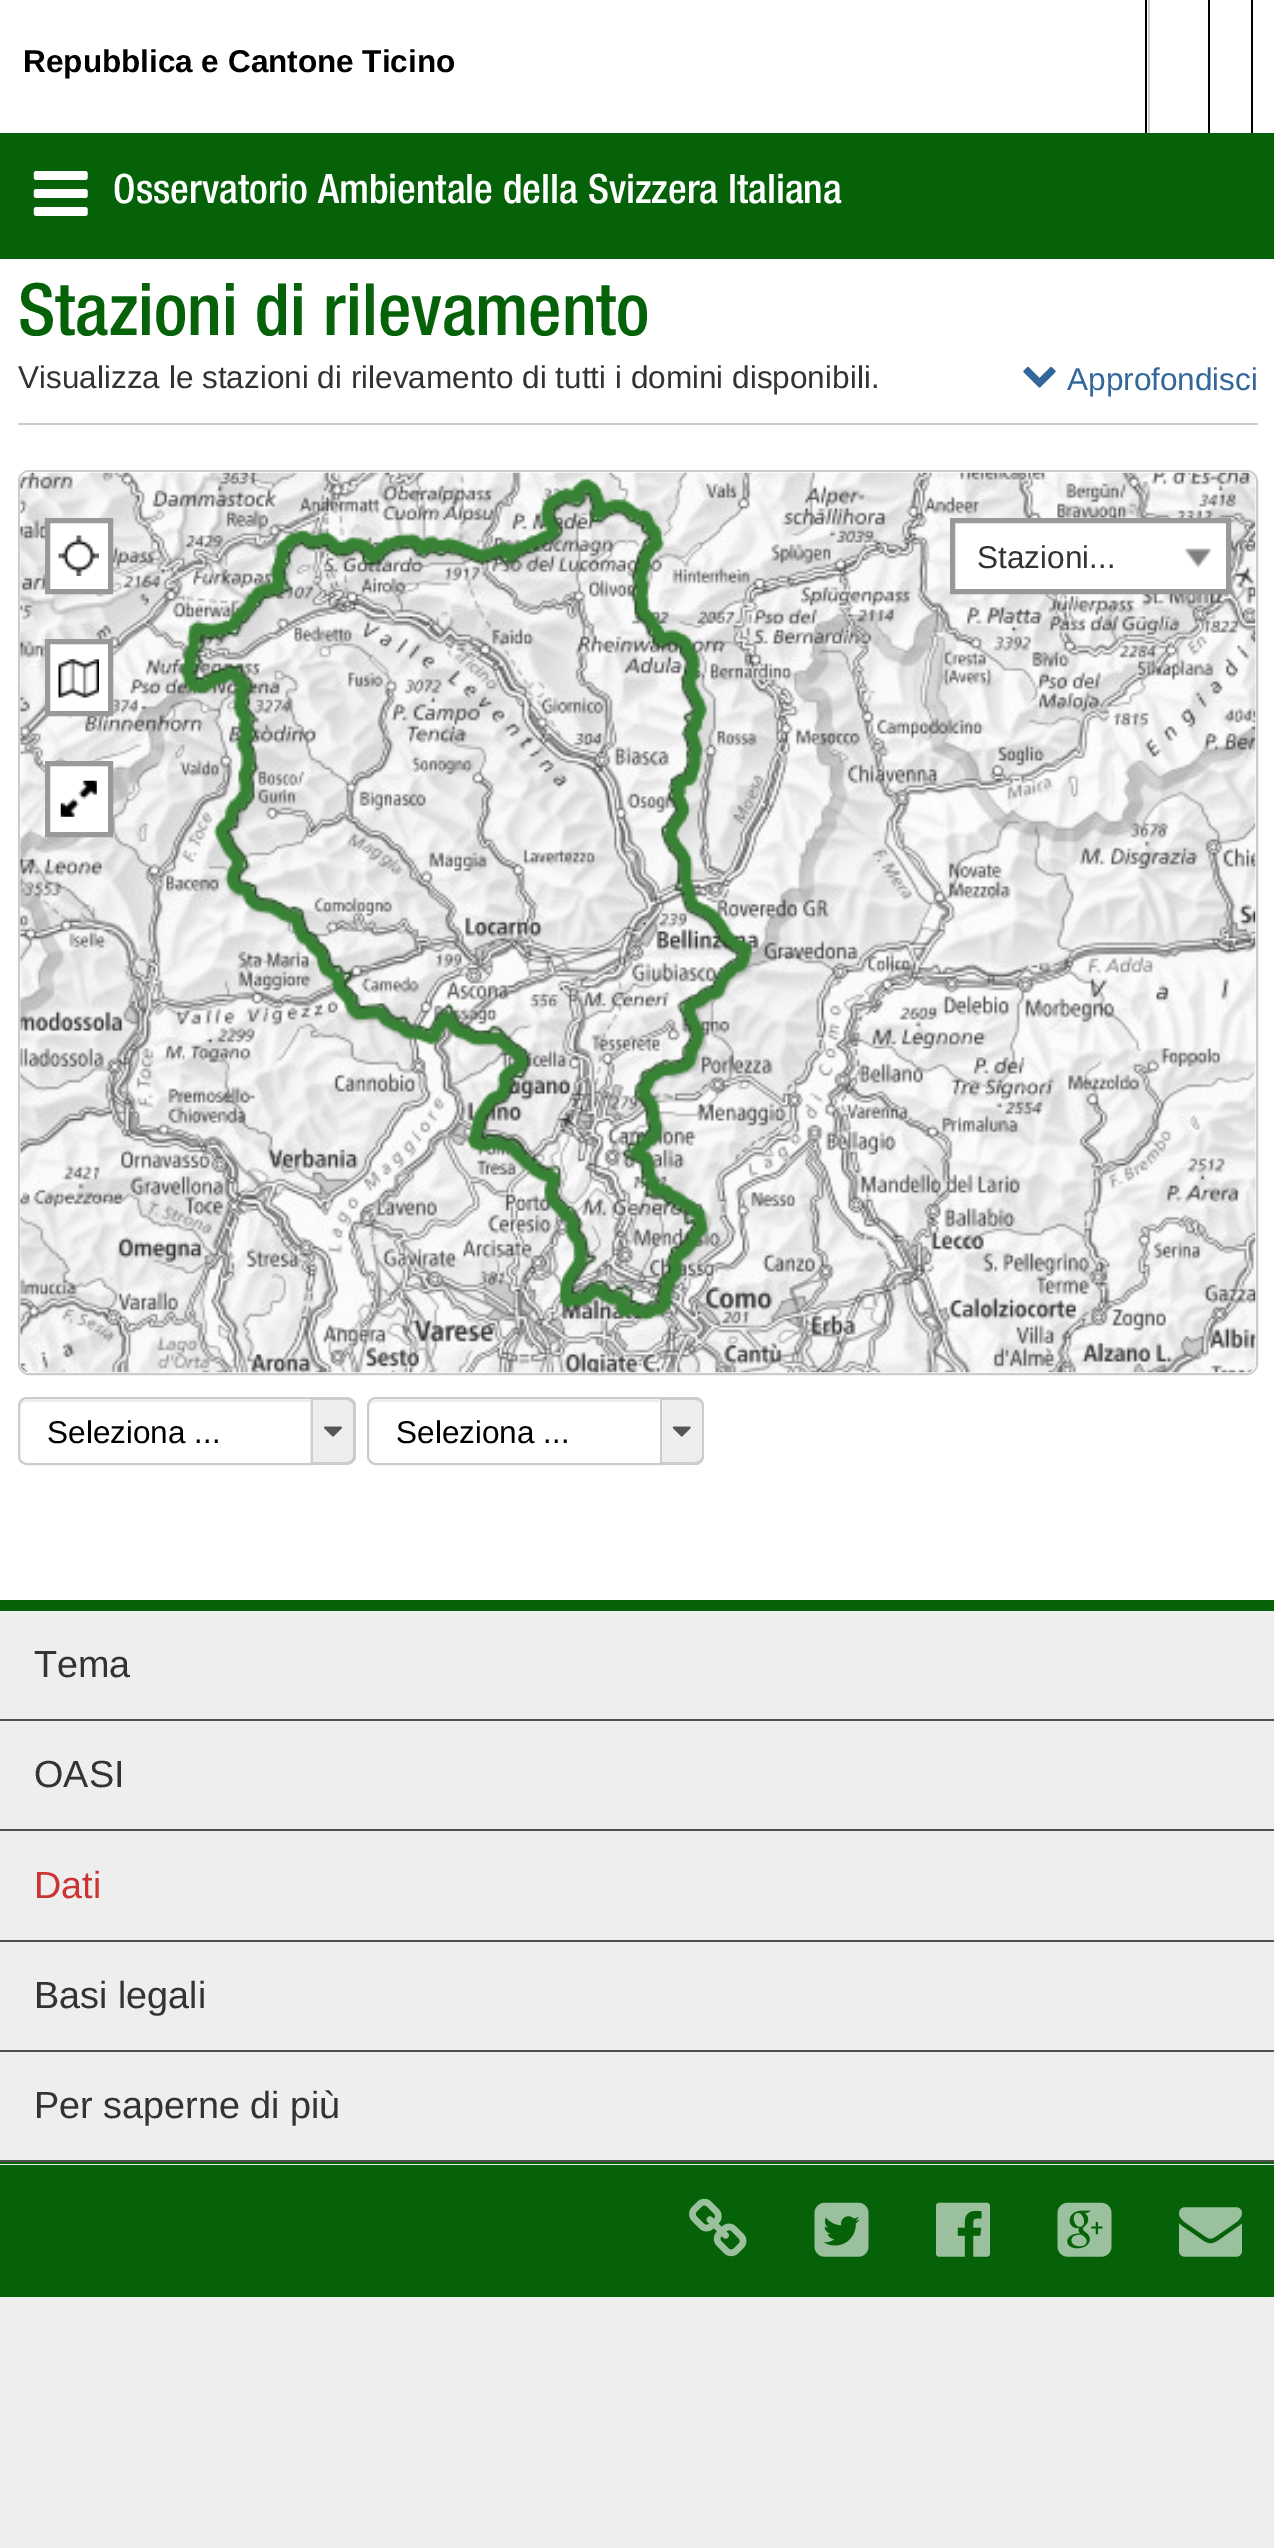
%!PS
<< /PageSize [1274 2548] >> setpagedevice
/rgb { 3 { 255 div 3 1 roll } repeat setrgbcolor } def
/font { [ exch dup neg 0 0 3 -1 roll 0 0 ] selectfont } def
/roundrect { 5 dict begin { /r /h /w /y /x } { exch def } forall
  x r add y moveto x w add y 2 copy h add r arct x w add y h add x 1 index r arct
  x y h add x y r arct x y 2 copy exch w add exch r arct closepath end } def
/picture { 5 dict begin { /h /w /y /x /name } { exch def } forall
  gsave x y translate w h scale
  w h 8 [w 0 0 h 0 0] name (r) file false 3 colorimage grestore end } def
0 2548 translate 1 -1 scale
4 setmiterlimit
238 238 238 rgb
0 0 1274 2548 rectfill
[
  [0 0 1274 1600 255 255 255]
  [1251 0 2 133 0 0 0]
  [1145 0 2 133 0 0 0]
  [1208 0 2 133 0 0 0]
  [1148 0 2 133 204 204 204]
  [0 133 1274 126 5 98 9]
] { aload pop rgb rectfill } forall
(img/1.rgb) 33 171 55 45 picture
204 204 204 rgb
18 423 1240 2 rectfill
(img/2.rgb) 1023 366 33 22 picture
2 setlinewidth
19 471 1238 903 10 roundrect stroke
249 249 249 rgb
20 473 1236 900 9 roundrect fill
(img/3.rgb) 20 472 1236 901 picture
255 255 255 rgb
47.5 520.5 moveto 110.5 520.5 lineto 110.5 591.5 lineto 47.5 591.5 lineto closepath gsave fill grestore
153 153 153 rgb
5 setlinewidth
stroke
(img/4.rgb) 58 535 41 41 picture
255 255 255 rgb
47.5 641.5 moveto 110.5 641.5 lineto 110.5 713.5 lineto 47.5 713.5 lineto closepath gsave fill grestore
153 153 153 rgb
stroke
(img/5.rgb) 58 659 41 39 picture
255 255 255 rgb
47.5 763.5 moveto 110.5 763.5 lineto 110.5 834.5 lineto 47.5 834.5 lineto closepath gsave fill grestore
153 153 153 rgb
stroke
(img/6.rgb) 60 780 37 37 picture
255 255 255 rgb
952.5 520.5 moveto 1228.5 520.5 lineto 1228.5 591.5 lineto 952.5 591.5 lineto closepath gsave fill grestore
153 153 153 rgb
stroke
(img/7.rgb) 1184 548 28 20 picture
236 236 236 rgb
27 1402 moveto 310 1402 lineto 310 1463 lineto 311 1463 lineto 311 1400 lineto 26 1400 lineto 22 1401 20 1404 20 1408 curveto 20 1405 23 1402 27 1402 curveto closepath fill
204 204 204 rgb
2 setlinewidth
27 1398 moveto 312 1398 lineto 312 1464 lineto 27 1464 lineto 22.5 1464 19 1460.5 19 1456 curveto 19 1406 lineto 19 1401.5 22.5 1398 27 1398 curveto closepath stroke
238 238 238 rgb
313 1397 moveto 347 1397 lineto 352 1397 356 1401 356 1406 curveto 356 1456 lineto 356 1461 352 1465 347 1465 curveto 313 1465 lineto closepath fill
204 204 204 rgb
313 1397 moveto 346 1397 lineto 351 1397 356 1401 356 1406 curveto 356 1456 lineto 356 1461 351 1465 346 1465 curveto 313 1465 lineto closepath 313 1400 moveto 346 1400 lineto 350 1400 353 1403 353 1406 curveto 353 1456 lineto 353 1459 350 1462 346 1462 curveto 313 1462 lineto closepath eofill
(img/8.rgb) 324 1426 18 11 picture
236 236 236 rgb
376 1402 moveto 659 1402 lineto 659 1400 lineto 375 1400 lineto 371 1401 369 1404 369 1408 curveto 369 1405 372 1402 376 1402 curveto closepath fill
204 204 204 rgb
376 1398 moveto 661 1398 lineto 661 1464 lineto 376 1464 lineto 371.5 1464 368 1460.5 368 1456 curveto 368 1406 lineto 368 1401.5 371.5 1398 376 1398 curveto closepath stroke
238 238 238 rgb
662 1397 moveto 695 1397 lineto 700 1397 704 1401 704 1406 curveto 704 1456 lineto 704 1461 700 1465 695 1465 curveto 662 1465 lineto closepath fill
204 204 204 rgb
662 1397 moveto 695 1397 lineto 700 1397 704 1401 704 1406 curveto 704 1456 lineto 704 1461 700 1465 695 1465 curveto 662 1465 lineto closepath 662 1400 moveto 695 1400 lineto 699 1400 702 1403 702 1406 curveto 702 1456 lineto 702 1459 699 1462 695 1462 curveto 662 1462 lineto closepath eofill
(img/9.rgb) 672 1426 19 11 picture
[
  [0 1600 1274 11 5 98 9]
  [0 2162 1274 2 5 98 9]
  [0 1719 1274 2 80 80 80]
  [0 1829 1274 2 80 80 80]
  [0 1940 1274 2 80 80 80]
  [0 2050 1274 2 80 80 80]
  [0 2160 1274 2 80 80 80]
  [0 2165 1274 132 5 98 9]
] { aload pop rgb rectfill } forall
(img/10.rgb) 689 2198 58 59 picture
(img/11.rgb) 814 2202 55 55 picture
(img/12.rgb) 936 2202 54 55 picture
(img/13.rgb) 1057 2202 55 55 picture
(img/14.rgb) 1179 2207 63 50 picture
/LiberationSans-Bold 31.5 font
0 0 0 rgb
23 72 moveto (Repubblica e Cantone Ticino) show
/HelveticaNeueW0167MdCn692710-Regular 40.5 font
255 255 255 rgb
113 203 moveto (Osservatorio Ambientale della Svizzera Italiana) show
/HelveticaNeueW0167MdCn692710-Regular 72 font
5 98 9 rgb
18 335 moveto (Stazioni di rilevamento) show
/LiberationSans-Regular 31.5 font
51 51 51 rgb
18 388 moveto (Visualizza le stazioni di rilevamento di tutti i domini disponibili.) show
51 102 153 rgb
1067 390 moveto (Approfondisci) show
51 51 51 rgb
977 568 moveto (Stazioni...) show
0 0 0 rgb
47 1443 moveto (Seleziona ...) show
396 1443 moveto (Seleziona ...) show
/LiberationSans-Regular 37.75 font
51 51 51 rgb
34 1677 moveto (Tema) show
34 1787 moveto (OASI) show
204 51 51 rgb
34 1898 moveto (Dati) show
51 51 51 rgb
34 2008 moveto (Basi legali) show
34 2118 moveto (Per saperne di più) show
showpage
